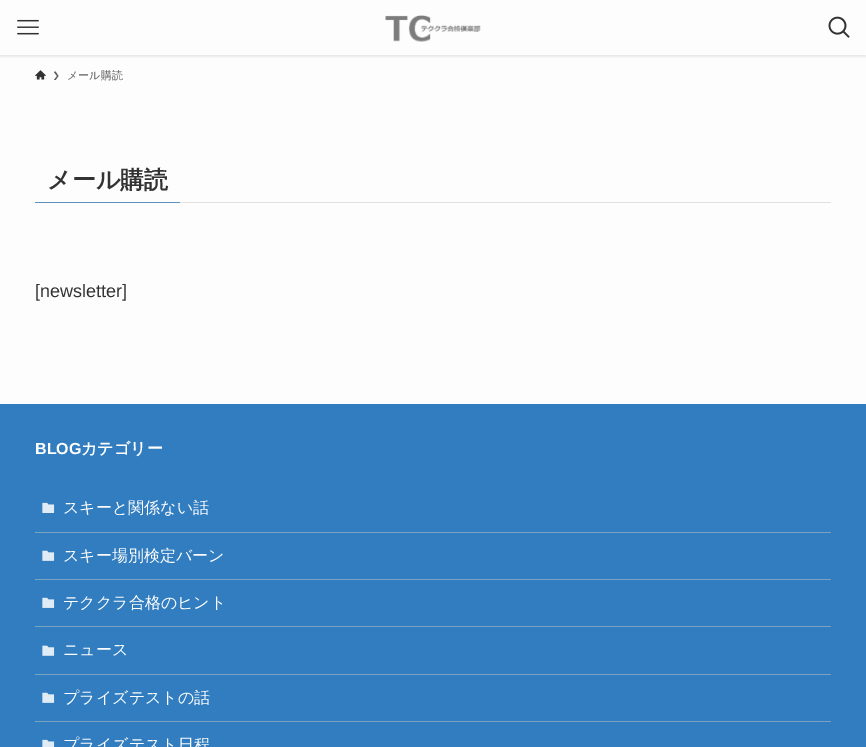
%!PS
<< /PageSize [866 747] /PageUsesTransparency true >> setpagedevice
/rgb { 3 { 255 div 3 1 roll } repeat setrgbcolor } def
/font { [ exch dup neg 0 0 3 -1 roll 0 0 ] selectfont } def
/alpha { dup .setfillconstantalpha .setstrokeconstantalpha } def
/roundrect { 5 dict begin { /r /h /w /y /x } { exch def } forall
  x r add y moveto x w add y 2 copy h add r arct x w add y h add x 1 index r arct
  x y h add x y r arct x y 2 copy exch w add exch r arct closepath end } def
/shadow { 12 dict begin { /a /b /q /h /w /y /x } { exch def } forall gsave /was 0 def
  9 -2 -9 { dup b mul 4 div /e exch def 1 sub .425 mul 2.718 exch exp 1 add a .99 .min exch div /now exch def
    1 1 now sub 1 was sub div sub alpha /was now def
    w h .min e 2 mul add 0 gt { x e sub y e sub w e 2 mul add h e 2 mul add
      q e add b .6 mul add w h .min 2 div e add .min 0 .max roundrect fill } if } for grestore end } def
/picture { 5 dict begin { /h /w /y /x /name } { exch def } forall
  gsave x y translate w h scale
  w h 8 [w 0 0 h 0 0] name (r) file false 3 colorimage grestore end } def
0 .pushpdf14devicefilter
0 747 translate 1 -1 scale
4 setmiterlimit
253 253 253 rgb
0 0 866 747 rectfill
gsave
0 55 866 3 rectclip
0 0 0 rgb
0 1 866 55 0 2 0.12 shadow
grestore
(img/1.rgb) 17 19 22 16 picture
(img/2.rgb) 385 15 96 27 picture
(img/3.rgb) 828 16 22 22 picture
(img/4.rgb) 35 70 11 10 picture
91 91 91 rgb
55.5 71.5 moveto 54 72 lineto 57 76 lineto 54 80 lineto 55.5 80 lineto 58.5 76 lineto closepath fill
[
  [180 202 651 1 226 226 226]
  [35 202 145 1 91 144 191]
  [0 404 866 343 49 125 191]
  [35 532 796 1 124 162 195]
] { aload pop rgb rectfill } forall
(img/5.rgb) 42 502 13 11 picture
35 579 796 1 rectfill
(img/6.rgb) 42 550 13 11 picture
35 626 796 1 rectfill
(img/7.rgb) 42 597 13 11 picture
35 674 796 1 rectfill
(img/8.rgb) 42 645 13 11 picture
35 721 796 1 rectfill
(img/9.rgb) 42 692 13 11 picture
(img/10.rgb) 42 739 13 8 picture
/WenQuanYiZenHei-Medium 11 font
91 91 91 rgb
67 79 moveto (メール購読) show
/WenQuanYiZenHei-Bold 24 font
51 51 51 rgb
47 188 moveto (メール購読) show
/LiberationSans-Regular 18 font
35 297 moveto ([newsletter]) show
/LiberationSans-Bold 16 font
255 255 255 rgb
35 454 moveto (BLOG) show
/WenQuanYiZenHei-Bold 16 font
81 454 moveto (カテゴリー) show
/WenQuanYiZenHei-Medium 16 font
[
  [(スキーと関係ない話) 63 513]
  [(スキー場別検定バーン) 63 561]
  [(テククラ合格のヒント) 63 608]
  [(ニュース) 63 655]
  [(プライズテストの話) 63 703]
  [(プライズテスト日程) 63 750]
] { aload pop moveto show } forall
.poppdf14devicefilter showpage
